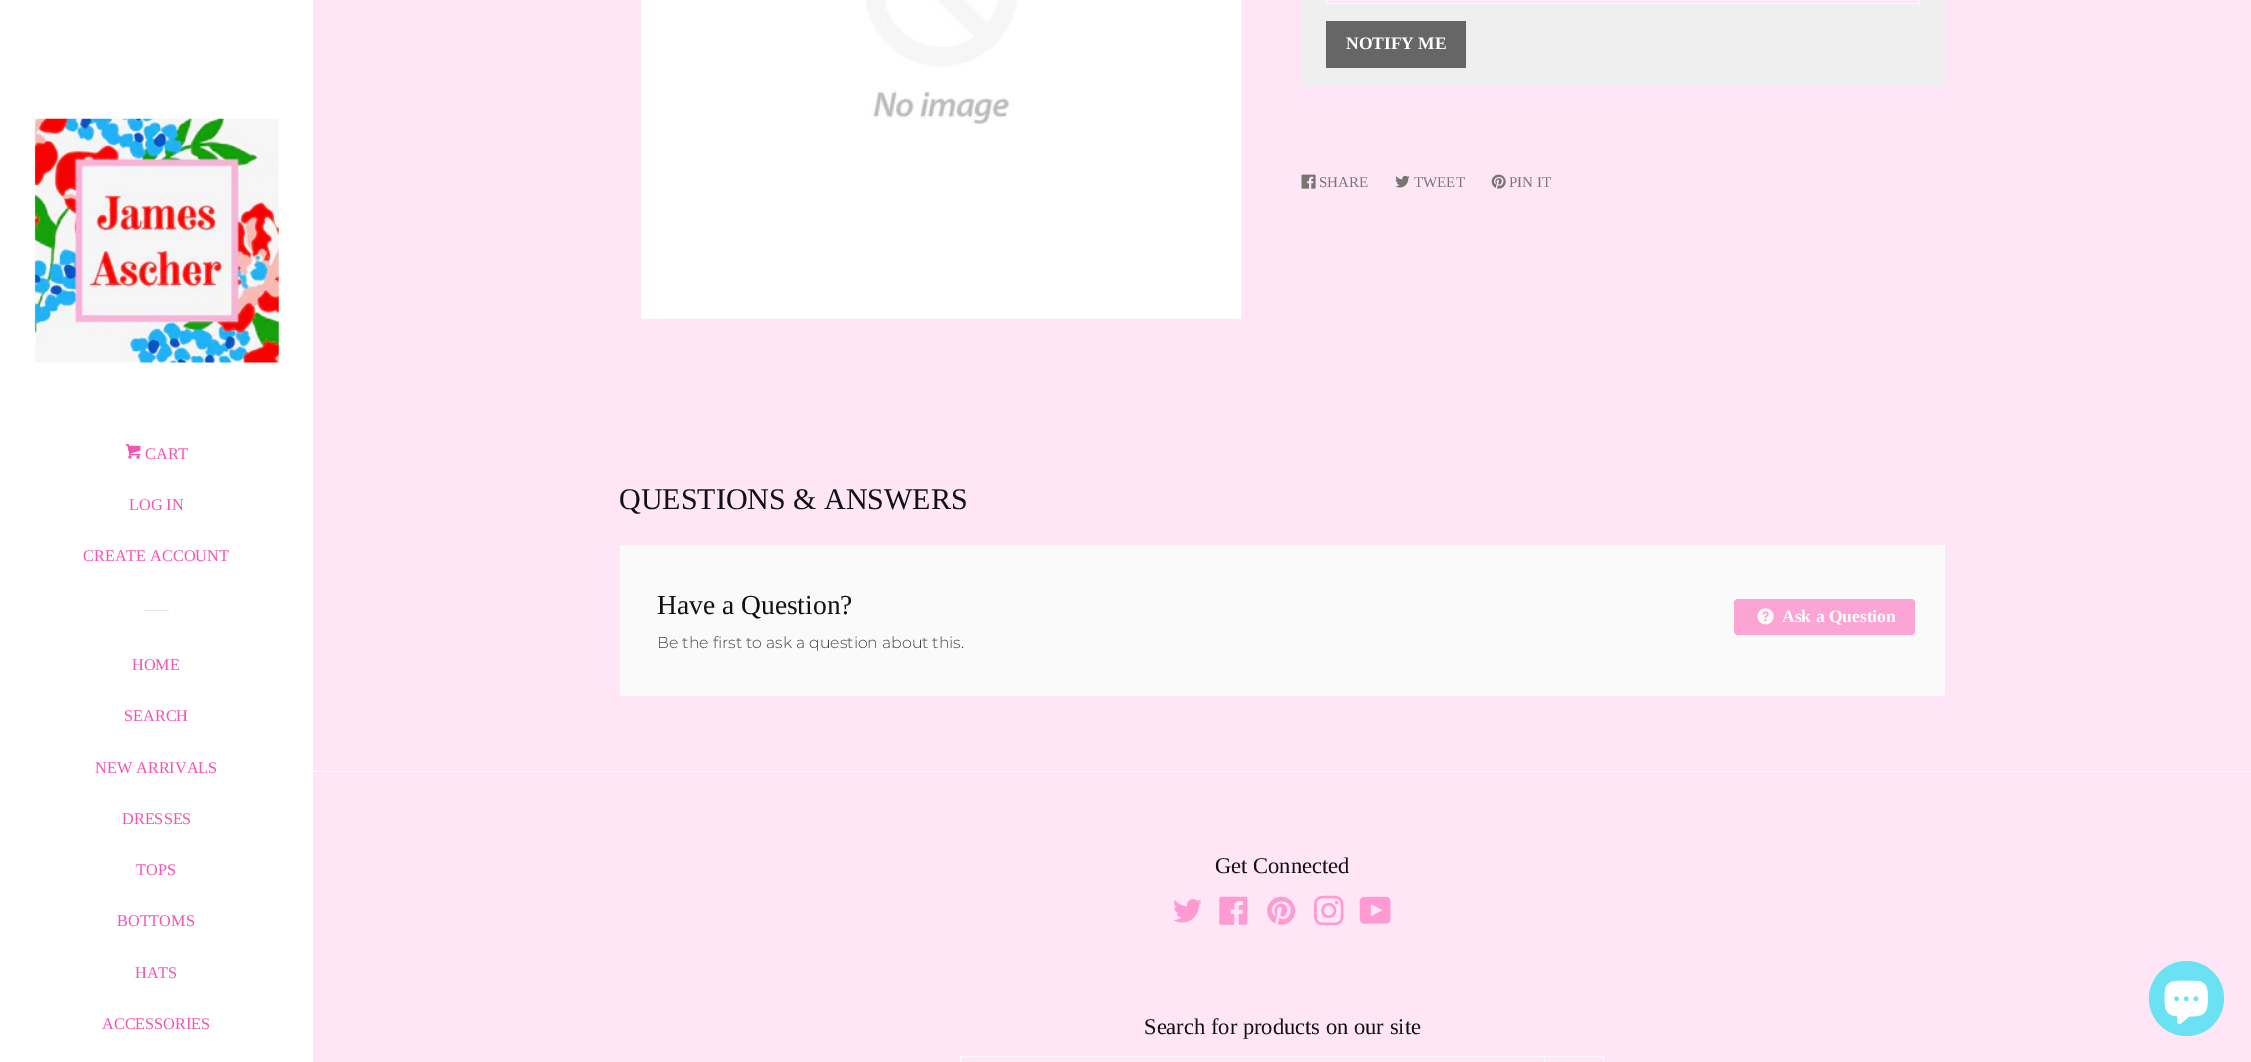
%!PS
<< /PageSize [2251 1062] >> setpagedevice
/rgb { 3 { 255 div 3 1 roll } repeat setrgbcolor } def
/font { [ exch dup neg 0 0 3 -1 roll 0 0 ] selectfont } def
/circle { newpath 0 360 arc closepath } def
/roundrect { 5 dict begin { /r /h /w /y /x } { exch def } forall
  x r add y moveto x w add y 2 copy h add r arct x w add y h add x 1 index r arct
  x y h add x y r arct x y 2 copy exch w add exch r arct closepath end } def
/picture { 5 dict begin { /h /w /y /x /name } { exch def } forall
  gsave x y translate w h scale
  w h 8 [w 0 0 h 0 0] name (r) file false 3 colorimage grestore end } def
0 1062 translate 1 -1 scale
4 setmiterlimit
255 255 255 rgb
0 0 2251 1062 rectfill
(img/1.rgb) 34 118 245 245 picture
(img/2.rgb) 125 444 16 15 picture
230 230 230 rgb
144 610 25 1 rectfill
255 230 246 rgb
313 0 1938 1062 rectfill
(img/3.rgb) 641 0 601 319 picture
239 239 239 rgb
1301 0 644 86 rectfill
255 230 246 rgb
1326.5 -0.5 moveto 1919.5 -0.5 lineto 1919.5 3.5 lineto 1326.5 3.5 lineto closepath gsave fill grestore
250 250 250 rgb
stroke
102 102 102 rgb
1326 21 140 47 rectfill
(img/4.rgb) 1301 174 15 15 picture
(img/5.rgb) 1395 175 15 13 picture
(img/6.rgb) 1491 174 15 15 picture
250 250 250 rgb
620 545 1325 151 rectfill
252 164 212 rgb
1734 599 181 36 4 roundrect fill
(img/7.rgb) 1757 608 17 17 picture
250 250 250 rgb
313 771 1938 1 rectfill
(img/8.rgb) 1173 899 29 24 picture
(img/9.rgb) 1219 896 29 29 picture
(img/10.rgb) 1267 896 29 29 picture
(img/11.rgb) 1314 895 30 31 picture
(img/12.rgb) 1359 896 32 28 picture
960.5 1056.5 643 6 rectstroke
1544 1058 1 4 rectfill
107 225 244 rgb
2186.5 998.5 37.5 circle fill
(img/13.rgb) 2164 980 44 45 picture
/LiberationSerif-Regular 16.25 font
245 83 178 rgb
[
  [(CART) 145 459]
  [(LOG IN) 129 510]
  [(CREATE ACCOUNT) 83 561]
  [(HOME) 132 670]
  [(SEARCH) 124 721]
  [(NEW ARRIVALS) 95 773]
  [(DRESSES) 122 824]
  [(TOPS) 136 875]
  [(BOTTOMS) 117 926]
  [(HATS) 135 978]
  [(ACCESSORIES) 102 1029]
] { aload pop moveto show } forall
/LiberationSerif-Bold 17.5 font
255 255 255 rgb
1346 49 moveto (NOTIFY ME) show
/LiberationSerif-Regular 15 font
118 117 116 rgb
[
  [(SHARE) 1319 187]
  [(TWEET) 1414 187]
  [(PIN IT) 1509 187]
] { aload pop moveto show } forall
/LiberationSerif-Regular 30 font
17 17 17 rgb
619 509 moveto (QUESTIONS & ANSWERS) show
/LiberationSerif-Regular 27.5 font
657 614 moveto (Have a Question?) show
/Montserrat-Light 15.75 font
68 68 68 rgb
657 648 moveto (Be the first to ask a question about this.) show
/LiberationSerif-Bold 17.5 font
255 255 255 rgb
1782 622 moveto (Ask a Question) show
/LiberationSerif-Regular 22.5 font
17 17 17 rgb
1215 873 moveto (Get Connected) show
1144 1034 moveto (Search for products on our site) show
showpage
